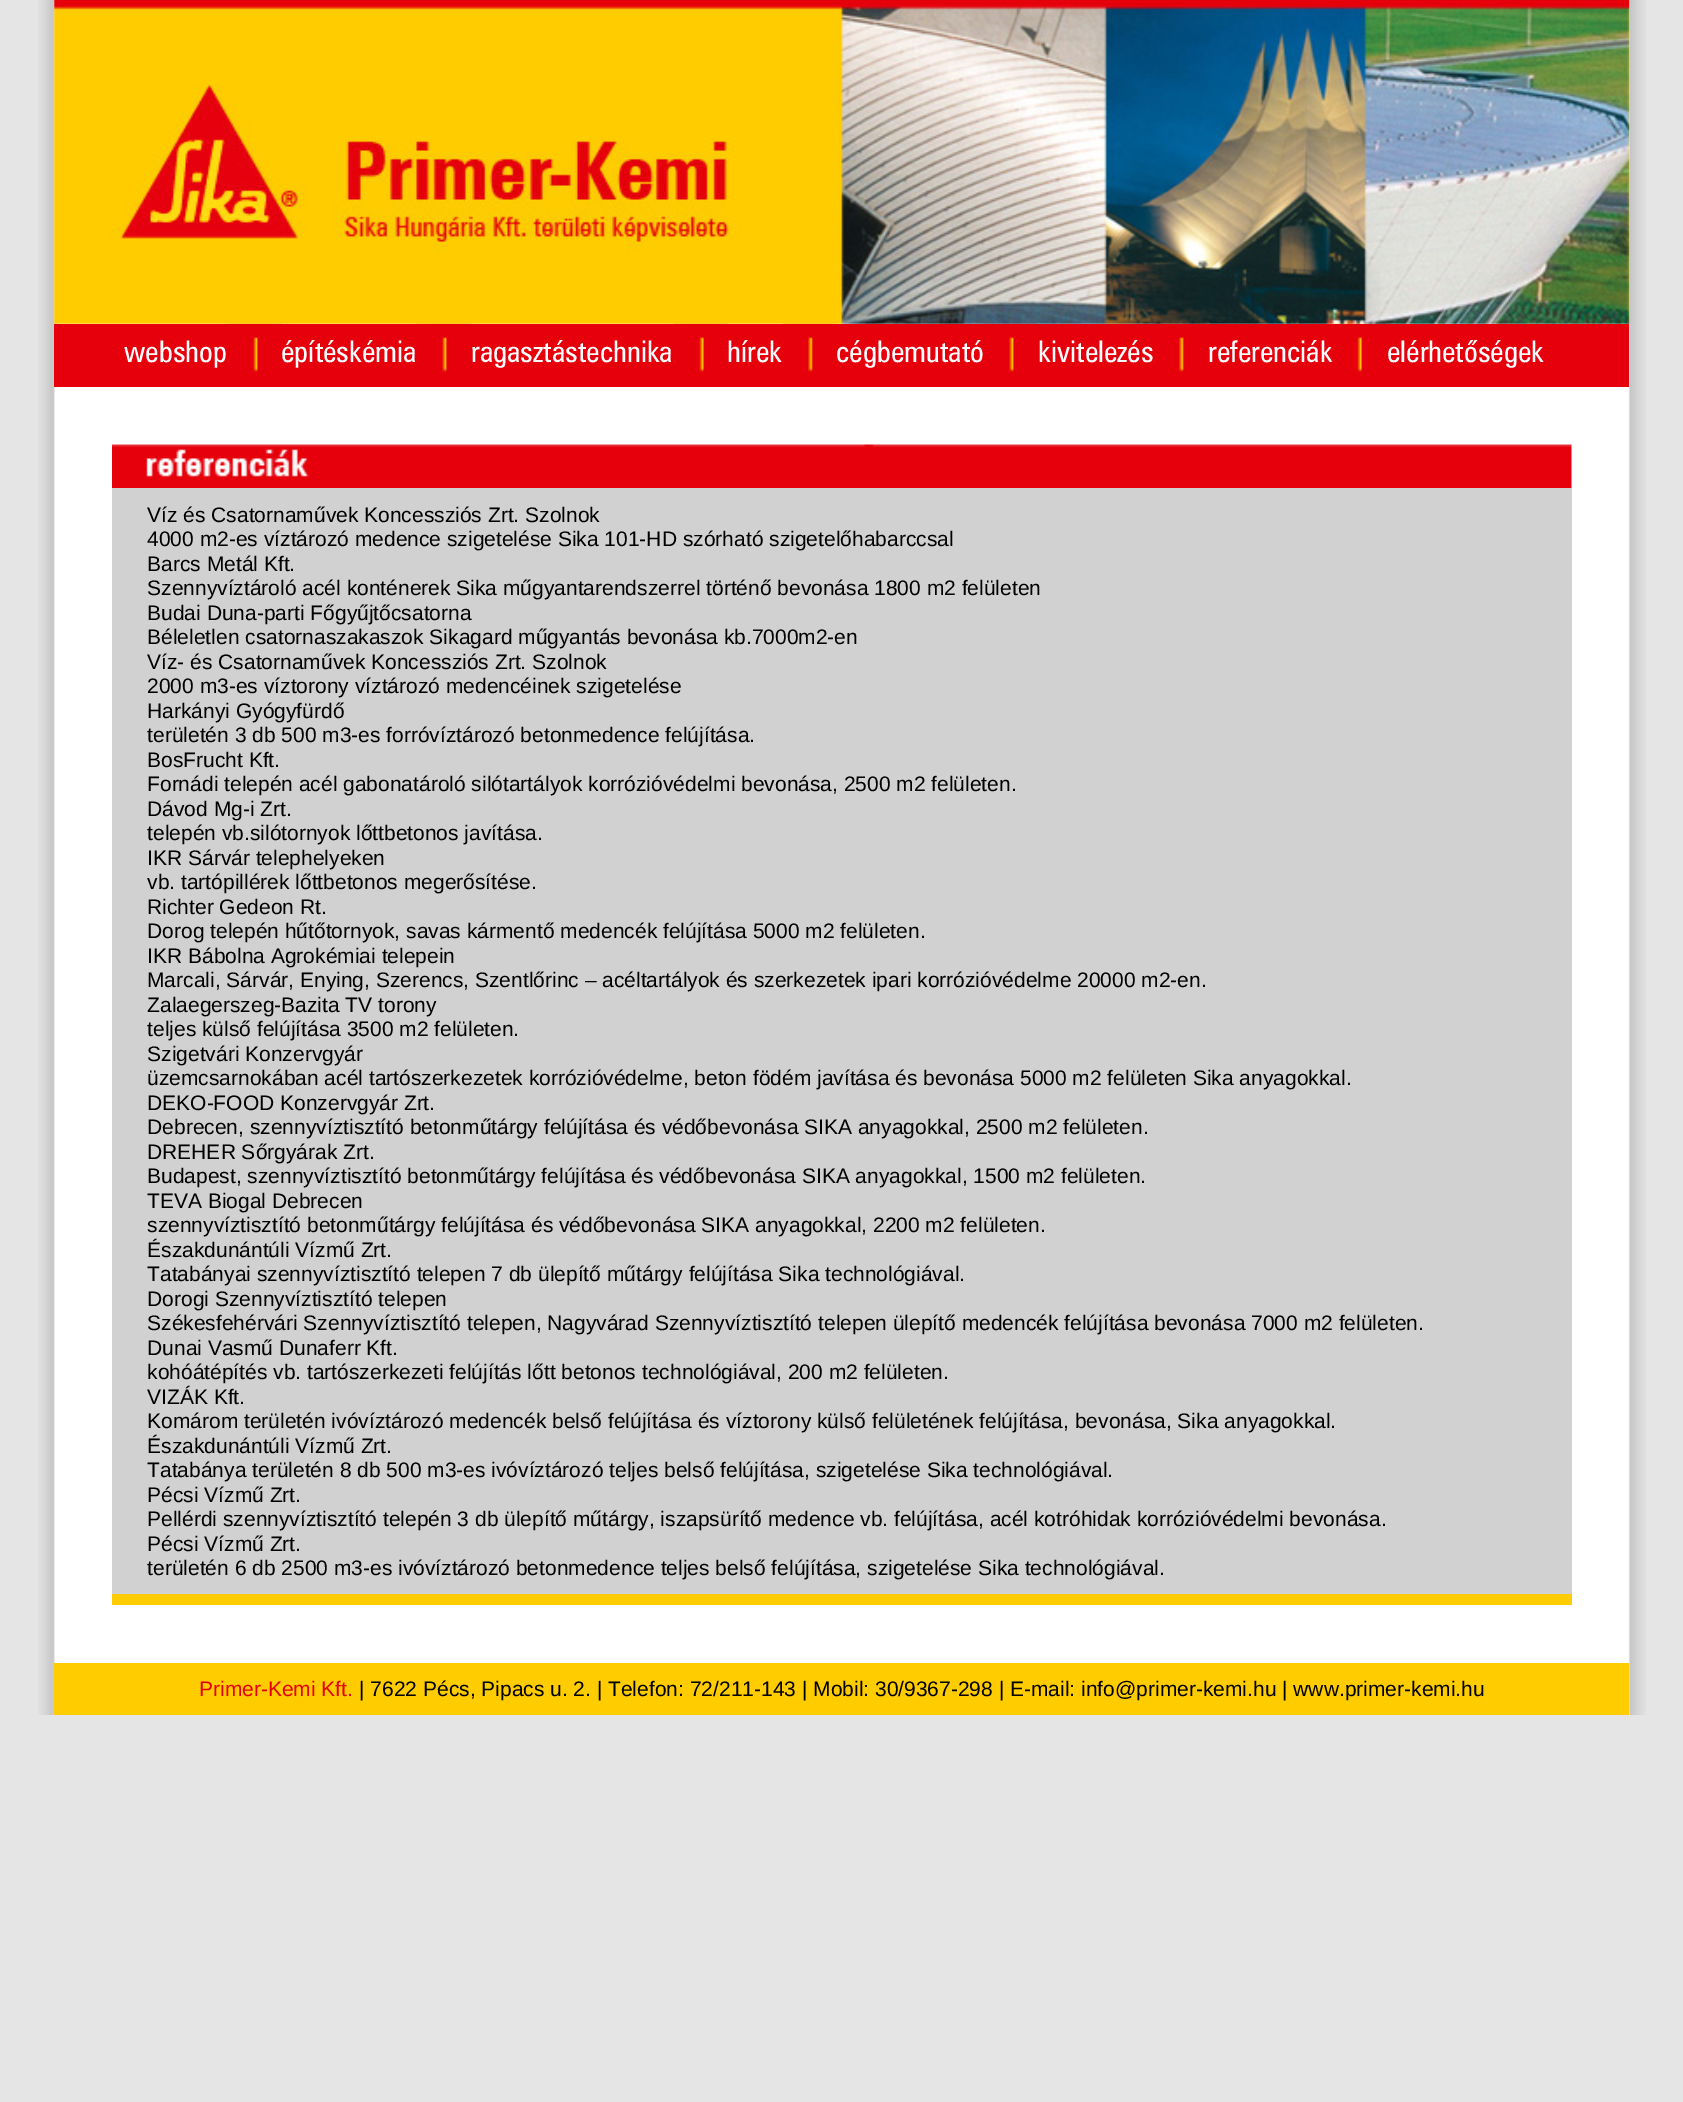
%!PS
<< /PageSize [1683 2102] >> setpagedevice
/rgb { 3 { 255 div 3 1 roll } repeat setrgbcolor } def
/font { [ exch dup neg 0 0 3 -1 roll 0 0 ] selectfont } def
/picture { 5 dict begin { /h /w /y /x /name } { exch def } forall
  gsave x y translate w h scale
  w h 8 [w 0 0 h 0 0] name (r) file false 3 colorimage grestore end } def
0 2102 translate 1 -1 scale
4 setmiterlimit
229 229 229 rgb
0 0 1683 2102 rectfill
(img/1.rgb) 38 0 1608 1715 picture
229 0 11 rgb
54 324 1575 63 rectfill
(img/3.rgb) 227 323 55 49 picture
(img/4.rgb) 416 323 55 49 picture
(img/5.rgb) 673 323 55 49 picture
(img/6.rgb) 782 323 55 49 picture
(img/4.rgb) 983 323 55 49 picture
(img/6.rgb) 1153 323 55 49 picture
(img/8.rgb) 112 444 1460 44 picture
[
  [112 488 1460 1106 209 209 209]
  [112 1594 1460 11 255 204 0]
  [54 1663 1575 52 255 204 0]
] { aload pop rgb rectfill } forall
/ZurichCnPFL-Regular 29.75 font
255 255 255 rgb
[
  [(webshop) 124 362]
  [(építéskémia) 281 362]
  [(ragasztástechnika) 471 362]
  [(hírek) 727 362]
  [(cégbemutató) 836 362]
  [(kivitelezés) 1038 362]
  [(referenciák) 1208 362]
] { aload pop moveto show } forall
(img/7.rgb) 1331 323 55 49 picture
(img/2.rgb) 54 0 1576 324 picture
1387 362 moveto (elérhetőségek) show
/LiberationSans-Regular 21 font
0 0 0 rgb
[
  [(Víz és Csatornaművek Koncessziós Zrt. Szolnok) 147 522]
  [(4000 m2-es víztározó medence szigetelése Sika 101-HD szórható szigetelőhabarccsal) 147 546]
  [(Barcs Metál Kft.) 147 571]
  [(Szennyvíztároló acél konténerek Sika műgyantarendszerrel történő bevonása 1800 m2 felületen) 147 595]
  [(Budai Duna-parti Főgyűjtőcsatorna) 147 620]
  [(Béleletlen csatornaszakaszok Sikagard műgyantás bevonása kb.7000m2-en) 147 644]
  [(Víz- és Csatornaművek Koncessziós Zrt. Szolnok) 147 669]
  [(2000 m3-es víztorony víztározó medencéinek szigetelése) 147 693]
  [(Harkányi Gyógyfürdő) 147 718]
  [(területén 3 db 500 m3-es forróvíztározó betonmedence felújítása.) 147 742]
  [(BosFrucht Kft.) 147 767]
  [(Fornádi telepén acél gabonatároló silótartályok korrózióvédelmi bevonása, 2500 m2 felületen.) 147 791]
  [(Dávod Mg-i Zrt.) 147 816]
  [(telepén vb.silótornyok lőttbetonos javítása.) 147 840]
  [(IKR Sárvár telephelyeken) 147 865]
  [(vb. tartópillérek lőttbetonos megerősítése.) 147 889]
  [(Richter Gedeon Rt.) 147 914]
  [(Dorog telepén hűtőtornyok, savas kármentő medencék felújítása 5000 m2 felületen.) 147 938]
  [(IKR Bábolna Agrokémiai telepein) 147 963]
  [(Marcali, Sárvár, Enying, Szerencs, Szentlőrinc – acéltartályok és szerkezetek ipari korrózióvédelme 20000 m2-en.) 147 987]
  [(Zalaegerszeg-Bazita TV torony) 147 1012]
  [(teljes külső felújítása 3500 m2 felületen.) 147 1036]
  [(Szigetvári Konzervgyár) 147 1061]
  [(üzemcsarnokában acél tartószerkezetek korrózióvédelme, beton födém javítása és bevonása 5000 m2 felületen Sika anyagokkal.) 147 1085]
  [(DEKO-FOOD Konzervgyár Zrt.) 147 1110]
  [(Debrecen, szennyvíztisztító betonműtárgy felújítása és védőbevonása SIKA anyagokkal, 2500 m2 felületen.) 147 1134]
  [(DREHER Sőrgyárak Zrt.) 147 1159]
  [(Budapest, szennyvíztisztító betonműtárgy felújítása és védőbevonása SIKA anyagokkal, 1500 m2 felületen.) 147 1183]
  [(TEVA Biogal Debrecen) 147 1208]
  [(szennyvíztisztító betonműtárgy felújítása és védőbevonása SIKA anyagokkal, 2200 m2 felületen.) 147 1232]
  [(Északdunántúli Vízmű Zrt.) 147 1257]
  [(Tatabányai szennyvíztisztító telepen 7 db ülepítő műtárgy felújítása Sika technológiával.) 147 1281]
  [(Dorogi Szennyvíztisztító telepen) 147 1306]
  [(Székesfehérvári Szennyvíztisztító telepen, Nagyvárad Szennyvíztisztító telepen ülepítő medencék felújítása bevonása 7000 m2 felületen.) 147 1330]
  [(Dunai Vasmű Dunaferr Kft.) 147 1355]
  [(kohóátépítés vb. tartószerkezeti felújítás lőtt betonos technológiával, 200 m2 felületen.) 147 1379]
  [(VIZÁK Kft.) 147 1404]
  [(Komárom területén ivóvíztározó medencék belső felújítása és víztorony külső felületének felújítása, bevonása, Sika anyagokkal.) 147 1428]
  [(Északdunántúli Vízmű Zrt.) 147 1453]
  [(Tatabánya területén 8 db 500 m3-es ivóvíztározó teljes belső felújítása, szigetelése Sika technológiával.) 147 1477]
  [(Pécsi Vízmű Zrt.) 147 1502]
  [(Pellérdi szennyvíztisztító telepén 3 db ülepítő műtárgy, iszapsürítő medence vb. felújítása, acél kotróhidak korrózióvédelmi bevonása.) 147 1526]
  [(Pécsi Vízmű Zrt.) 147 1551]
  [(területén 6 db 2500 m3-es ivóvíztározó betonmedence teljes belső felújítása, szigetelése Sika technológiával.) 147 1575]
] { aload pop moveto show } forall
229 0 11 rgb
199 1696 moveto (Primer-Kemi Kft.) show
0 0 0 rgb
359 1696 moveto (| 7622 Pécs, Pipacs u. 2. | Telefon: 72/211-143 | Mobil: 30/9367-298 | E-mail: info@primer-kemi.hu | www.primer-kemi.hu) show
showpage
